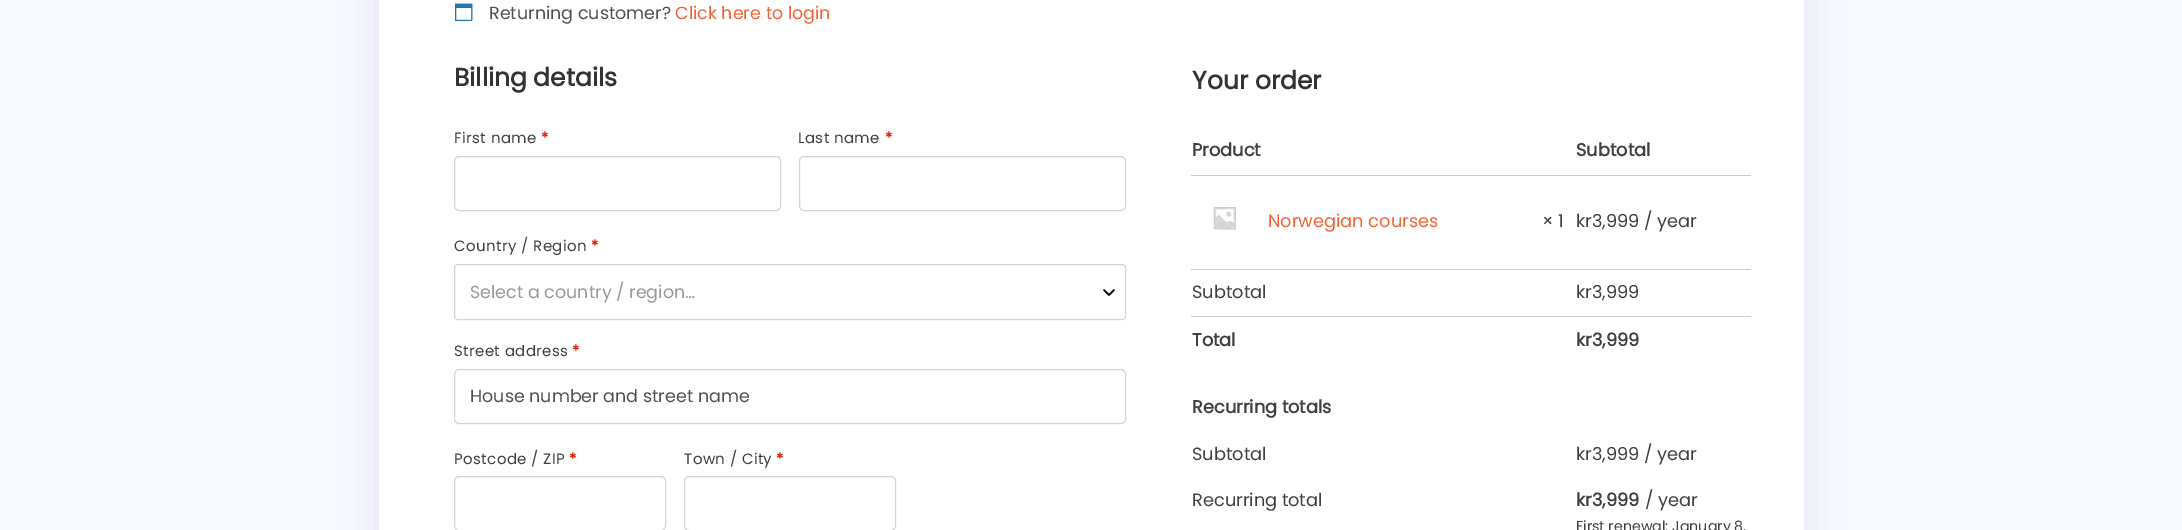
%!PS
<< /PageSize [2182 530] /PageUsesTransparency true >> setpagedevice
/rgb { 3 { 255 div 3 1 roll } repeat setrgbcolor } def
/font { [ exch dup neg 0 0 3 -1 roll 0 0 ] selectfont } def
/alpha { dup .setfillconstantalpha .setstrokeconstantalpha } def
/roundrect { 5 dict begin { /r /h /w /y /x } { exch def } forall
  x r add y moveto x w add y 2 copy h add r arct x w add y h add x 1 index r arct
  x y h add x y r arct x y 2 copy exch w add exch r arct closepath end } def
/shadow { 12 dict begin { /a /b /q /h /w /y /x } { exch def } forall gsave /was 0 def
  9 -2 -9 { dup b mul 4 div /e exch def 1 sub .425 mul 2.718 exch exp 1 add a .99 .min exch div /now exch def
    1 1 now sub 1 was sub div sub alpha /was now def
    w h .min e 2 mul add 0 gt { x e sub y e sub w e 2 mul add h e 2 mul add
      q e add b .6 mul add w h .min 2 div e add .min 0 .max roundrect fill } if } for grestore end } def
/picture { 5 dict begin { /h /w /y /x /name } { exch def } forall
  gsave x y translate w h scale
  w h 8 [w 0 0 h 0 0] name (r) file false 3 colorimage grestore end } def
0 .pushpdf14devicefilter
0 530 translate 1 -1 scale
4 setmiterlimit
248 249 254 rgb
0 0 2182 530 rectfill
179 183 204 rgb
379 -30 1425 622 5 19 0.32 shadow
255 255 255 rgb
379 0 1425 530 rectfill
(img/1.rgb) 455 3 18 19 picture
212 212 212 rgb
454.5 156.5 326 54 4.5 roundrect stroke
799.5 156.5 326 54 4.5 roundrect stroke
454.5 264.5 671 55 3.5 roundrect stroke
0 0 0 rgb
1.7 setlinewidth
1 setlinecap
1 setlinejoin
1104 290 moveto 1109 295 lineto 1114 290 lineto stroke
212 212 212 rgb
1 setlinewidth
0 setlinecap
0 setlinejoin
454.5 369.5 671 54 4.5 roundrect stroke
454.5 476.5 211 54 4.5 roundrect stroke
684.5 476.5 211 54 4.5 roundrect stroke
204 204 204 rgb
1191 175 560 1 rectfill
1191 269 560 1 rectfill
(img/2.rgb) 1213 207 24 23 picture
1191 316 560 1 rectfill
/Poppins-Regular 17.5 font
81 81 81 rgb
489 19 moveto (Returning customer?) show
241 99 52 rgb
675 19 moveto (Click here to login) show
/Poppins-Bold 25 font
51 51 51 rgb
454 86 moveto (Billing details) show
/Poppins-Regular 15 font
64 64 64 rgb
454 143 moveto 0.4 0 (First name) ashow
/Poppins-Bold 15 font
225 30 0 rgb
541 143 moveto 0.4 0 (*) ashow
/Poppins-Regular 15 font
64 64 64 rgb
798 143 moveto 0.4 0 (Last name) ashow
/Poppins-Bold 15 font
225 30 0 rgb
885 143 moveto 0.4 0 (*) ashow
/Poppins-Regular 15 font
64 64 64 rgb
454 251 moveto 0.4 0 (Country / Region) ashow
/Poppins-Bold 15 font
225 30 0 rgb
591 251 moveto 0.4 0 (*) ashow
/Poppins-Regular 17.5 font
153 153 153 rgb
470 298 moveto (Select a country / region…) show
/Poppins-Regular 15 font
64 64 64 rgb
454 356 moveto 0.4 0 (Street address) ashow
/Poppins-Bold 15 font
225 30 0 rgb
572 356 moveto 0.4 0 (*) ashow
/Poppins-Regular 17.5 font
81 81 81 rgb
470 402 moveto (House number and street name) show
/Poppins-Regular 15 font
64 64 64 rgb
454 464 moveto 0.4 0 (Postcode / ZIP) ashow
/Poppins-Bold 15 font
225 30 0 rgb
569 464 moveto 0.4 0 (*) ashow
/Poppins-Regular 15 font
64 64 64 rgb
684 464 moveto 0.4 0 (Town / City) ashow
/Poppins-Bold 15 font
225 30 0 rgb
776 464 moveto 0.4 0 (*) ashow
/Poppins-Bold 25 font
51 51 51 rgb
1192 89 moveto (Your order) show
/Poppins-Bold 17.75 font
64 64 64 rgb
1192 156 moveto (Product) show
1576 156 moveto (Subtotal) show
/Poppins-Regular 17.75 font
241 99 52 rgb
1268 227 moveto (Norwegian courses) show
64 64 64 rgb
[
  [(× 1) 1542 227]
  [(kr3,999 / year) 1576 227]
  [(Subtotal) 1192 298]
  [(kr3,999) 1576 298]
] { aload pop moveto show } forall
/Poppins-Bold 17.75 font
[
  [(Total) 1192 346]
  [(kr3,999) 1576 346]
  [(Recurring totals) 1192 413]
] { aload pop moveto show } forall
/Poppins-Regular 17.75 font
[
  [(Subtotal) 1192 460]
  [(kr3,999 / year) 1576 460]
  [(Recurring total) 1192 506]
] { aload pop moveto show } forall
/Poppins-Bold 17.75 font
1576 506 moveto (kr3,999) show
/Poppins-Regular 17.75 font
1645 506 moveto (/ year) show
/Poppins-Regular 14.25 font
1576 531 moveto (First renewal: January 8,) show
.poppdf14devicefilter showpage
